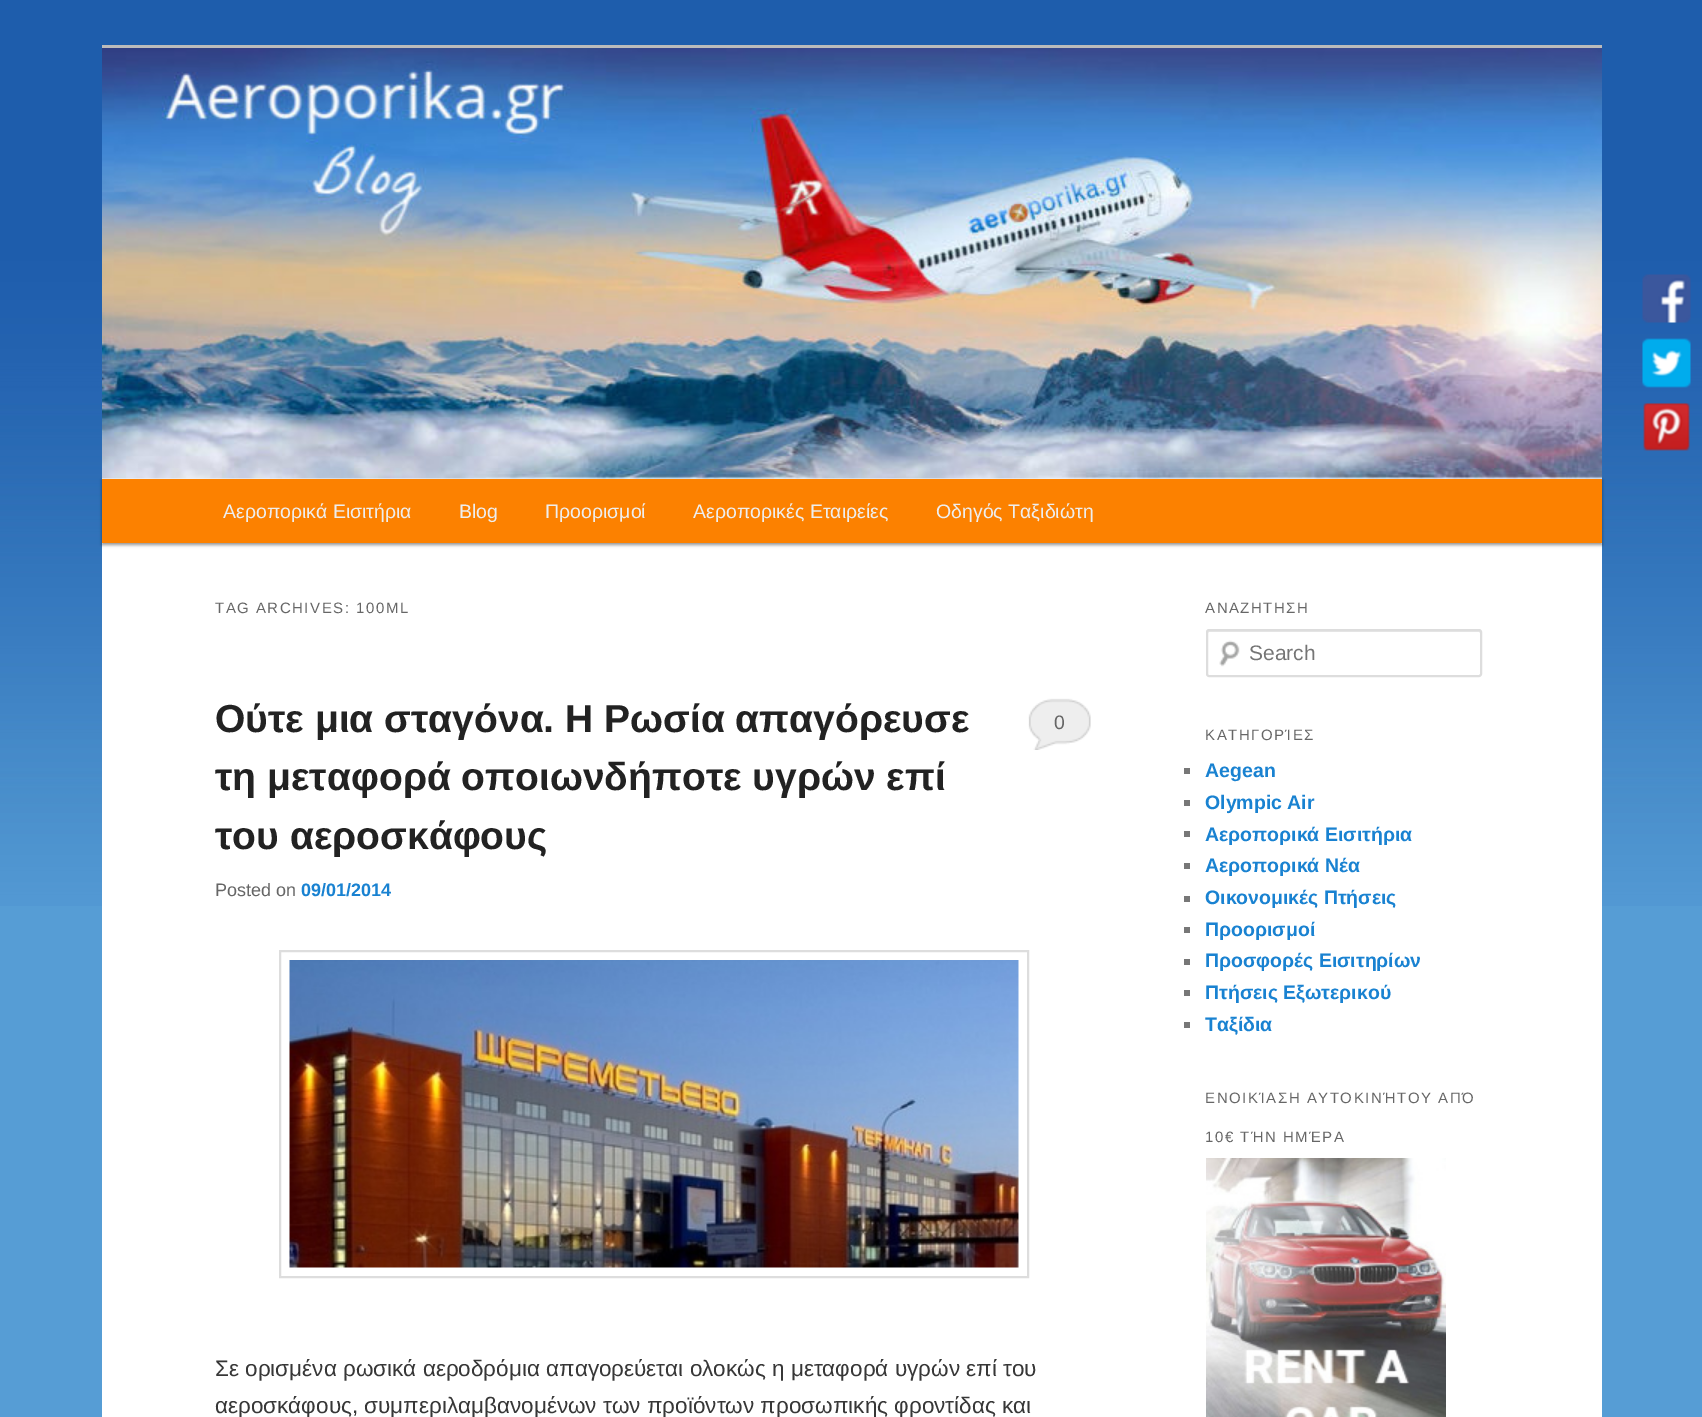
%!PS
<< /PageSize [1702 1417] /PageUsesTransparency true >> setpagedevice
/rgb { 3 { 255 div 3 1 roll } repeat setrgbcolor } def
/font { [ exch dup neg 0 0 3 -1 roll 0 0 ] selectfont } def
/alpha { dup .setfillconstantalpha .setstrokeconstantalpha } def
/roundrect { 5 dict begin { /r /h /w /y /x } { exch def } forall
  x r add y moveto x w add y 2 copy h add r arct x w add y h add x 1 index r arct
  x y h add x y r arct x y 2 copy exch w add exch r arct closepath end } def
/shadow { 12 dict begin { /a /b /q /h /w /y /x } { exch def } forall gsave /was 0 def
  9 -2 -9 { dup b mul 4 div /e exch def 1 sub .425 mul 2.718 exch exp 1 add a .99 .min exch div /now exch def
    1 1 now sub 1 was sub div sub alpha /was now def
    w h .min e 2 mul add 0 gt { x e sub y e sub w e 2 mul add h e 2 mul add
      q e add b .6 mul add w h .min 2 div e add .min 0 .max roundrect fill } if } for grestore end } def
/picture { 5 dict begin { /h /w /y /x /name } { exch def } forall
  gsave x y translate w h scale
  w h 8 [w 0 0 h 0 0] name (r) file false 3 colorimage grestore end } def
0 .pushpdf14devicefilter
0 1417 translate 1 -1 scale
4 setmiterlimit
86 157 213 rgb
0 0 1702 1417 rectfill
(img/1.rgb) 0 0 1702 906 picture
(img/2.rgb) 1642 274 49 49 picture
(img/3.rgb) 1642 338 49 50 picture
(img/4.rgb) 1643 403 47 48 picture
255 255 255 rgb
102 478 1500 939 rectfill
187 187 187 rgb
102 45 1500 3 rectfill
0 0 0 rgb
102 480 1500 65 0 1.5 0.4 shadow
(img/5.rgb) 102 48 1500 431 picture
252 129 0 rgb
102 479 1500 64 rectfill
238 238 238 rgb
1028 698 63 52 rectfill
(img/6.rgb) 1028 696 64 54 picture
221 221 221 rgb
2 setlinewidth
280 951 748 326 rectstroke
(img/7.rgb) 289 960 730 308 picture
(img/8.rgb) 1219 640 21 27 picture
230 230 230 rgb
1209 632 moveto 1479 632 lineto 1480 632 1480 632 1480 633 curveto 1480 675 lineto 1481 674 lineto 1481 632 lineto 1481 631 1480 630 1480 630 curveto 1209 630 lineto 1208 631 1208 632 1208 633 curveto 1208 632 1208 632 1209 632 curveto closepath fill
221 221 221 rgb
1207 630 274 46 2 roundrect stroke
[
  [1184 768 6 6 119 119 119]
  [1184 800 6 6 119 119 119]
  [1184 831 6 6 119 119 119]
  [1184 863 6 6 119 119 119]
  [1184 896 6 6 119 119 119]
  [1184 927 6 6 119 119 119]
  [1184 959 6 6 119 119 119]
  [1184 990 6 6 119 119 119]
  [1184 1022 6 6 119 119 119]
] { aload pop rgb rectfill } forall
(img/9.rgb) 1206 1158 240 259 picture
/LiberationSans-Regular 19.5 font
238 238 238 rgb
[
  [(Αεροπορικά Εισιτήρια) 223 518]
  [(Blog) 459 518]
  [(Προορισμοί) 545 518]
  [(Αεροπορικές Εταιρείες) 693 518]
  [(Οδηγός Ταξιδιώτη) 936 518]
] { aload pop moveto show } forall
/LiberationSans-Regular 15 font
102 102 102 rgb
215 613 moveto 1.5 0 (TAG ARCHIVES: 100ML) ashow
/LiberationSans-Bold 39 font
34 34 34 rgb
[
  [(Ούτε μια σταγόνα. H Ρωσία απαγόρευσε) 215 732]
  [(τη μεταφορά οποιωνδήποτε υγρών επί) 215 790]
  [(του αεροσκάφους) 215 849]
] { aload pop moveto show } forall
/LiberationSans-Regular 19.5 font
102 102 102 rgb
1054 729 moveto (0) show
/LiberationSans-Regular 18 font
215 896 moveto (Posted on) show
/LiberationSans-Bold 18 font
25 130 209 rgb
301 896 moveto (09/01/2014) show
/LiberationSans-Regular 22.5 font
55 55 55 rgb
215 1376 moveto (Σε ορισμένα ρωσικά αεροδρόμια απαγορεύεται ολοκώς η μεταφορά υγρών επί του) show
215 1413 moveto (αεροσκάφους, συμπεριλαμβανομένων των προϊόντων προσωπικής φροντίδας και) show
/LiberationSans-Regular 15 font
102 102 102 rgb
1205 613 moveto 1.5 0 (ΑΝΑΖΗΤΗΣΗ) ashow
/LiberationSans-Regular 21 font
117 117 117 rgb
1249 660 moveto (Search) show
/LiberationSans-Regular 15 font
102 102 102 rgb
1205 740 moveto 1.5 0 (ΚΑΤΗΓΟΡΊΕΣ) ashow
/LiberationSans-Bold 19.5 font
25 130 209 rgb
[
  [(Aegean) 1205 777]
  [(Olympic Air) 1205 809]
  [(Αεροπορικά Εισιτήρια) 1205 841]
  [(Αεροπορικά Νέα) 1205 872]
  [(Οικονομικές Πτήσεις) 1205 904]
  [(Προορισμοί) 1205 936]
  [(Προσφορές Εισιτηρίων) 1205 967]
  [(Πτήσεις Εξωτερικού) 1205 999]
  [(Ταξίδια) 1205 1031]
] { aload pop moveto show } forall
/LiberationSans-Regular 15 font
102 102 102 rgb
1205 1103 moveto 1.5 0 (ΕΝΟΙΚΊΑΣΗ ΑΥΤΟΚΙΝΉΤΟΥ ΑΠΌ) ashow
1205 1142 moveto 1.5 0 (10€ ΤΉΝ ΗΜΈΡΑ) ashow
.poppdf14devicefilter showpage
